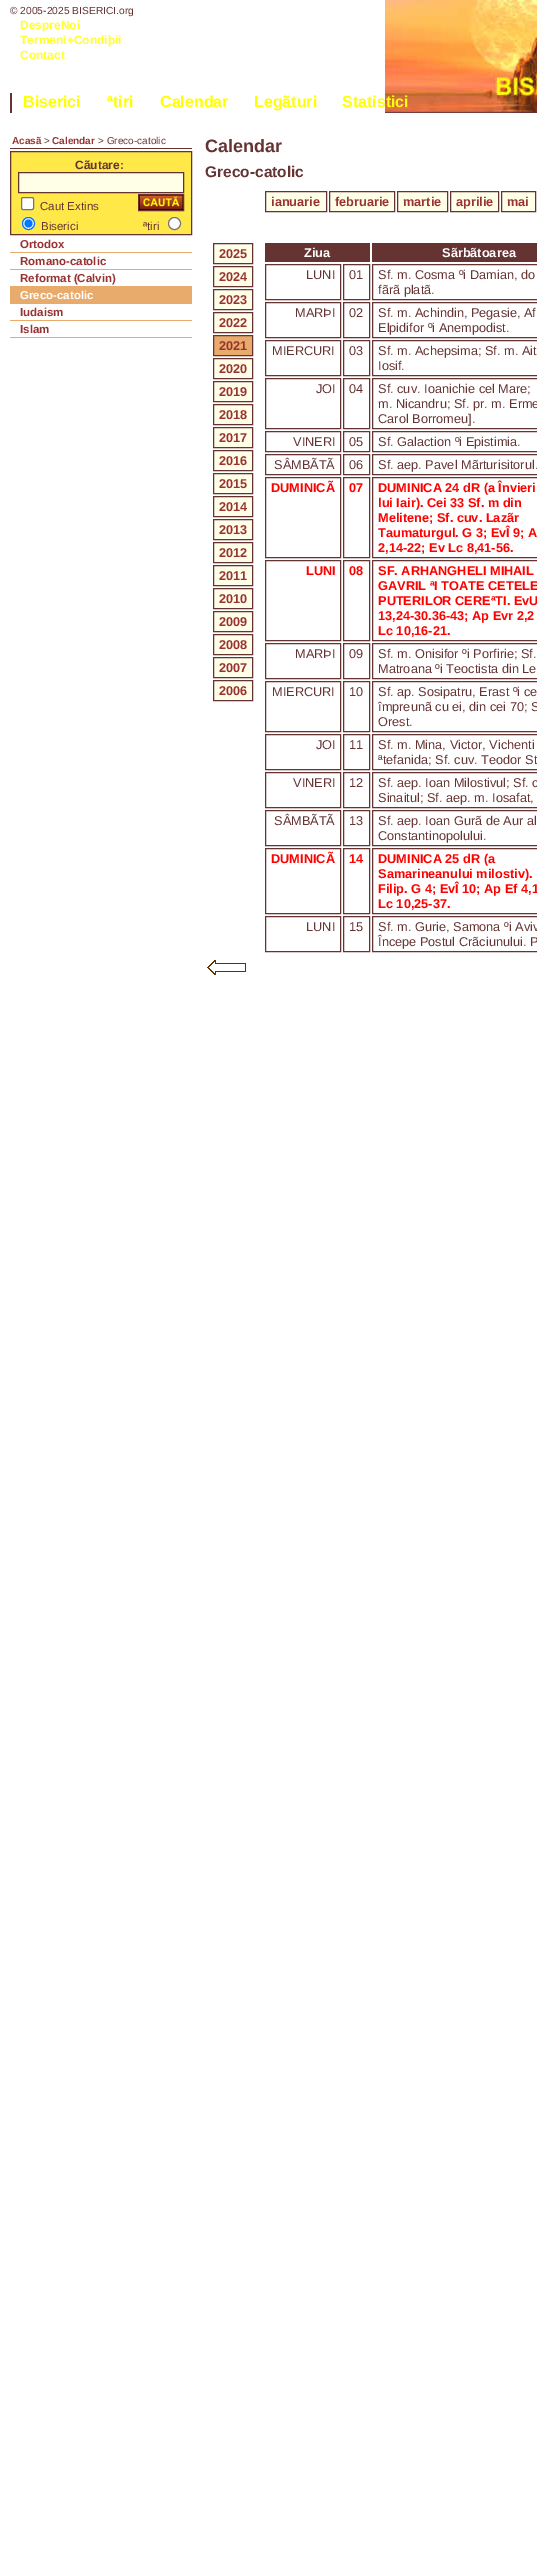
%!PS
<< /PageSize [537 2571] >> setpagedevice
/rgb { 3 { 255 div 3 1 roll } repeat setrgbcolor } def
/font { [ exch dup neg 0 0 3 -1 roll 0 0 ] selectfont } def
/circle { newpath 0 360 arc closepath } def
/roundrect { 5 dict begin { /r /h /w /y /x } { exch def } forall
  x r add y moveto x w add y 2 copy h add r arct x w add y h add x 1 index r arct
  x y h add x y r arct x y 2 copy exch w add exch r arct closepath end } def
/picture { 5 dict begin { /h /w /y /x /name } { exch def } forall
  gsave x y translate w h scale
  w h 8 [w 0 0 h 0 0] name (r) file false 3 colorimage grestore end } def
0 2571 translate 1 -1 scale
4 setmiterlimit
255 255 255 rgb
0 0 537 2571 rectfill
(img/1.rgb) 385 0 152 113 picture
102 51 51 rgb
10 93 2 20 rectfill
10 148 182 1 rectfill
255 232 72 rgb
10.5 151.5 moveto 191.5 151.5 lineto 191.5 234.5 lineto 10.5 234.5 lineto closepath gsave fill grestore
102 51 51 rgb
stroke
255 255 232 rgb
18.5 172.5 moveto 183.5 172.5 lineto 183.5 192.5 lineto 18.5 192.5 lineto closepath gsave fill grestore
102 51 51 rgb
stroke
255 255 255 rgb
21.5 197.5 12 12 1.5 roundrect gsave fill grestore
118 118 118 rgb
stroke
102 51 51 rgb
138.5 194.5 45 16 rectstroke
(img/2.rgb) 139 195 44 15 picture
255 255 255 rgb
28.5 223.5 6 circle gsave fill grestore
0 117 255 rgb
stroke
28.5 223.5 4 circle fill
255 255 255 rgb
174.5 223.5 6 circle gsave fill grestore
118 118 118 rgb
stroke
[
  [10 252 182 1 232 171 107]
  [10 269 182 1 232 171 107]
  [10 286 182 18 232 171 107]
  [10 320 182 1 232 171 107]
  [10 337 182 1 232 171 107]
] { aload pop rgb rectfill } forall
255 255 232 rgb
265.5 191.5 moveto 326.5 191.5 lineto 326.5 211.5 lineto 265.5 211.5 lineto closepath gsave fill grestore
102 51 51 rgb
stroke
255 255 232 rgb
329.5 191.5 moveto 394.5 191.5 lineto 394.5 211.5 lineto 329.5 211.5 lineto closepath gsave fill grestore
102 51 51 rgb
stroke
255 255 232 rgb
397.5 191.5 moveto 447.5 191.5 lineto 447.5 211.5 lineto 397.5 211.5 lineto closepath gsave fill grestore
102 51 51 rgb
stroke
255 255 232 rgb
450.5 191.5 moveto 498.5 191.5 lineto 498.5 211.5 lineto 450.5 211.5 lineto closepath gsave fill grestore
102 51 51 rgb
stroke
255 255 232 rgb
501.5 191.5 moveto 535.5 191.5 lineto 535.5 211.5 lineto 501.5 211.5 lineto closepath gsave fill grestore
102 51 51 rgb
stroke
255 255 232 rgb
213.5 243.5 moveto 252.5 243.5 lineto 252.5 263.5 lineto 213.5 263.5 lineto closepath gsave fill grestore
102 51 51 rgb
stroke
255 255 232 rgb
213.5 266.5 moveto 252.5 266.5 lineto 252.5 286.5 lineto 213.5 286.5 lineto closepath gsave fill grestore
102 51 51 rgb
stroke
255 255 232 rgb
213.5 289.5 moveto 252.5 289.5 lineto 252.5 309.5 lineto 213.5 309.5 lineto closepath gsave fill grestore
102 51 51 rgb
stroke
255 255 232 rgb
213.5 312.5 moveto 252.5 312.5 lineto 252.5 332.5 lineto 213.5 332.5 lineto closepath gsave fill grestore
102 51 51 rgb
stroke
232 171 107 rgb
213.5 335.5 moveto 252.5 335.5 lineto 252.5 355.5 lineto 213.5 355.5 lineto closepath gsave fill grestore
102 51 51 rgb
stroke
255 255 232 rgb
213.5 358.5 moveto 252.5 358.5 lineto 252.5 378.5 lineto 213.5 378.5 lineto closepath gsave fill grestore
102 51 51 rgb
stroke
255 255 232 rgb
213.5 381.5 moveto 252.5 381.5 lineto 252.5 401.5 lineto 213.5 401.5 lineto closepath gsave fill grestore
102 51 51 rgb
stroke
255 255 232 rgb
213.5 404.5 moveto 252.5 404.5 lineto 252.5 424.5 lineto 213.5 424.5 lineto closepath gsave fill grestore
102 51 51 rgb
stroke
255 255 232 rgb
213.5 427.5 moveto 252.5 427.5 lineto 252.5 447.5 lineto 213.5 447.5 lineto closepath gsave fill grestore
102 51 51 rgb
stroke
255 255 232 rgb
213.5 450.5 moveto 252.5 450.5 lineto 252.5 470.5 lineto 213.5 470.5 lineto closepath gsave fill grestore
102 51 51 rgb
stroke
255 255 232 rgb
213.5 473.5 moveto 252.5 473.5 lineto 252.5 493.5 lineto 213.5 493.5 lineto closepath gsave fill grestore
102 51 51 rgb
stroke
255 255 232 rgb
213.5 496.5 moveto 252.5 496.5 lineto 252.5 516.5 lineto 213.5 516.5 lineto closepath gsave fill grestore
102 51 51 rgb
stroke
255 255 232 rgb
213.5 519.5 moveto 252.5 519.5 lineto 252.5 539.5 lineto 213.5 539.5 lineto closepath gsave fill grestore
102 51 51 rgb
stroke
255 255 232 rgb
213.5 542.5 moveto 252.5 542.5 lineto 252.5 562.5 lineto 213.5 562.5 lineto closepath gsave fill grestore
102 51 51 rgb
stroke
255 255 232 rgb
213.5 565.5 moveto 252.5 565.5 lineto 252.5 585.5 lineto 213.5 585.5 lineto closepath gsave fill grestore
102 51 51 rgb
stroke
255 255 232 rgb
213.5 588.5 moveto 252.5 588.5 lineto 252.5 608.5 lineto 213.5 608.5 lineto closepath gsave fill grestore
102 51 51 rgb
stroke
255 255 232 rgb
213.5 611.5 moveto 252.5 611.5 lineto 252.5 631.5 lineto 213.5 631.5 lineto closepath gsave fill grestore
102 51 51 rgb
stroke
255 255 232 rgb
213.5 634.5 moveto 252.5 634.5 lineto 252.5 654.5 lineto 213.5 654.5 lineto closepath gsave fill grestore
102 51 51 rgb
stroke
255 255 232 rgb
213.5 657.5 moveto 252.5 657.5 lineto 252.5 677.5 lineto 213.5 677.5 lineto closepath gsave fill grestore
102 51 51 rgb
stroke
255 255 232 rgb
213.5 680.5 moveto 252.5 680.5 lineto 252.5 700.5 lineto 213.5 700.5 lineto closepath gsave fill grestore
102 51 51 rgb
stroke
265 243 105 19 rectfill
372 243 165 19 rectfill
265.5 264.5 75 35 rectstroke
343.5 264.5 26 35 rectstroke
372.5 264.5 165 35 rectstroke
265.5 302.5 75 35 rectstroke
343.5 302.5 26 35 rectstroke
372.5 302.5 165 35 rectstroke
265.5 340.5 75 35 rectstroke
343.5 340.5 26 35 rectstroke
372.5 340.5 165 35 rectstroke
265.5 378.5 75 50 rectstroke
343.5 378.5 26 50 rectstroke
372.5 378.5 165 50 rectstroke
265.5 431.5 75 20 rectstroke
343.5 431.5 26 20 rectstroke
372.5 431.5 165 20 rectstroke
265.5 454.5 75 20 rectstroke
343.5 454.5 26 20 rectstroke
372.5 454.5 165 20 rectstroke
265.5 477.5 75 80 rectstroke
343.5 477.5 26 80 rectstroke
372.5 477.5 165 80 rectstroke
265.5 560.5 75 80 rectstroke
343.5 560.5 26 80 rectstroke
372.5 560.5 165 80 rectstroke
265.5 643.5 75 35 rectstroke
343.5 643.5 26 35 rectstroke
372.5 643.5 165 35 rectstroke
265.5 681.5 75 50 rectstroke
343.5 681.5 26 50 rectstroke
372.5 681.5 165 50 rectstroke
265.5 734.5 75 35 rectstroke
343.5 734.5 26 35 rectstroke
372.5 734.5 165 35 rectstroke
265.5 772.5 75 35 rectstroke
343.5 772.5 26 35 rectstroke
372.5 772.5 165 35 rectstroke
265.5 810.5 75 35 rectstroke
343.5 810.5 26 35 rectstroke
372.5 810.5 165 35 rectstroke
265.5 848.5 75 65 rectstroke
343.5 848.5 26 65 rectstroke
372.5 848.5 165 65 rectstroke
265.5 916.5 75 35 rectstroke
343.5 916.5 26 35 rectstroke
372.5 916.5 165 35 rectstroke
(img/3.rgb) 207 960 39 15 picture
/LiberationSans-Regular 10.25 font
10 14 moveto (© 2005-2025 BISERICI.org) show
/LiberationSans-Bold 12 font
255 255 51 rgb
[
  [(DespreNoi) 20 29]
  [(Termeni+Condiþii) 20 44]
  [(Contact) 20 59]
] { aload pop moveto show } forall
/LiberationSans-Bold 16 font
255 255 0 rgb
[
  [(Biserici) 23 107]
  [(ªtiri) 107 107]
  [(Calendar) 160 107]
  [(Legãturi) 254 107]
  [(Statistici) 342 107]
] { aload pop moveto show } forall
/LiberationSans-Bold 10 font
153 51 51 rgb
12 144 moveto (Acasã) show
/LiberationSans-Regular 10 font
102 51 51 rgb
44 144 moveto (>) show
/LiberationSans-Bold 10 font
153 51 51 rgb
52 144 moveto (Calendar) show
/LiberationSans-Regular 10 font
102 51 51 rgb
98 144 moveto (> Greco-catolic) show
/LiberationSans-Bold 12 font
75 169 moveto (Cãutare:) show
/LiberationSans-Regular 11.5 font
[
  [(Caut Extins) 40 210]
  [(Biserici) 41 230]
  [(ªtiri) 143 230]
] { aload pop moveto show } forall
/LiberationSans-Bold 11.5 font
153 51 51 rgb
[
  [(Ortodox) 20 248]
  [(Romano-catolic) 20 265]
  [(Reformat \(Calvin\)) 20 282]
] { aload pop moveto show } forall
255 255 255 rgb
20 299 moveto (Greco-catolic) show
153 51 51 rgb
20 316 moveto (Iudaism) show
20 333 moveto (Islam) show
/LiberationSans-Bold 18 font
102 51 51 rgb
205 152 moveto (Calendar) show
/LiberationSans-Bold 15.5 font
205 177 moveto (Greco-catolic) show
/LiberationSans-Bold 12.75 font
153 51 51 rgb
[
  [(ianuarie) 271 206]
  [(februarie) 335 206]
  [(martie) 403 206]
  [(aprilie) 456 206]
  [(mai) 507 206]
  [(2025) 219 258]
  [(2024) 219 281]
  [(2023) 219 304]
  [(2022) 219 327]
  [(2021) 219 350]
  [(2020) 219 373]
  [(2019) 219 396]
  [(2018) 219 419]
  [(2017) 219 442]
  [(2016) 219 465]
  [(2015) 219 488]
  [(2014) 219 511]
  [(2013) 219 534]
  [(2012) 219 557]
  [(2011) 219 580]
  [(2010) 219 603]
  [(2009) 219 626]
  [(2008) 219 649]
  [(2007) 219 672]
  [(2006) 219 695]
] { aload pop moveto show } forall
255 255 255 rgb
304 257 moveto (Ziua) show
442 257 moveto (Sãrbãtoarea) show
/LiberationSans-Regular 12.75 font
102 51 51 rgb
[
  [(LUNI) 306 279]
  [(01) 349 279]
  [(Sf. m. Cosma ºi Damian, do) 378 279]
  [(fãrã platã.) 378 294]
  [(MARÞI) 295 317]
  [(02) 349 317]
  [(Sf. m. Achindin, Pegasie, Af) 378 317]
  [(Elpidifor ºi Anempodist.) 378 332]
  [(MIERCURI) 272 355]
  [(03) 349 355]
  [(Sf. m. Achepsima; Sf. m. Ait) 378 355]
  [(Iosif.) 378 370]
  [(JOI) 316 393]
  [(04) 349 393]
  [(Sf. cuv. Ioanichie cel Mare;) 378 393]
  [(m. Nicandru; Sf. pr. m. Erme) 378 408]
  [(Carol Borromeu].) 378 423]
  [(VINERI) 293 446]
  [(05) 349 446]
  [(Sf. Galaction ºi Epistimia.) 378 446]
  [(SÂMBÃTÃ) 274 469]
  [(06) 349 469]
  [(Sf. aep. Pavel Mãrturisitorul.) 378 469]
] { aload pop moveto show } forall
/LiberationSans-Bold 12.75 font
255 0 0 rgb
[
  [(DUMINICÃ) 271 492]
  [(07) 349 492]
  [(DUMINICA 24 dR \(a Învieri) 378 492]
  [(lui Iair\). Cei 33 Sf. m din) 378 507]
  [(Melitene; Sf. cuv. Lazãr) 378 522]
  [(Taumaturgul. G 3; EvÎ 9; A) 378 537]
  [(2,14-22; Ev Lc 8,41-56.) 378 552]
  [(LUNI) 306 575]
  [(08) 349 575]
  [(SF. ARHANGHELI MIHAIL) 378 575]
  [(GAVRIL ªI TOATE CETELE) 378 590]
  [(PUTERILOR CEREªTI. EvU) 378 605]
  [(13,24-30.36-43; Ap Evr 2,2) 378 620]
  [(Lc 10,16-21.) 378 635]
] { aload pop moveto show } forall
/LiberationSans-Regular 12.75 font
102 51 51 rgb
[
  [(MARÞI) 295 658]
  [(09) 349 658]
  [(Sf. m. Onisifor ºi Porfirie; Sf.) 378 658]
  [(Matroana ºi Teoctista din Le) 378 673]
  [(MIERCURI) 272 696]
  [(10) 349 696]
  [(Sf. ap. Sosipatru, Erast ºi ce) 378 696]
  [(împreunã cu ei, din cei 70; S) 378 711]
  [(Orest.) 378 726]
  [(JOI) 316 749]
  [(11) 349 749]
  [(Sf. m. Mina, Victor, Vichenti) 378 749]
  [(ªtefanida; Sf. cuv. Teodor St) 378 764]
  [(VINERI) 293 787]
  [(12) 349 787]
  [(Sf. aep. Ioan Milostivul; Sf. c) 378 787]
  [(Sinaitul; Sf. aep. m. Iosafat,) 378 802]
  [(SÂMBÃTÃ) 274 825]
  [(13) 349 825]
  [(Sf. aep. Ioan Gurã de Aur al) 378 825]
  [(Constantinopolului.) 378 840]
] { aload pop moveto show } forall
/LiberationSans-Bold 12.75 font
255 0 0 rgb
[
  [(DUMINICÃ) 271 863]
  [(14) 349 863]
  [(DUMINICA 25 dR \(a) 378 863]
  [(Samarineanului milostiv\).) 378 878]
  [(Filip. G 4; EvÎ 10; Ap Ef 4,1) 378 893]
  [(Lc 10,25-37.) 378 908]
] { aload pop moveto show } forall
/LiberationSans-Regular 12.75 font
102 51 51 rgb
[
  [(LUNI) 306 931]
  [(15) 349 931]
  [(Sf. m. Gurie, Samona ºi Aviv) 378 931]
  [(Începe Postul Crãciunului. P) 378 946]
] { aload pop moveto show } forall
showpage
